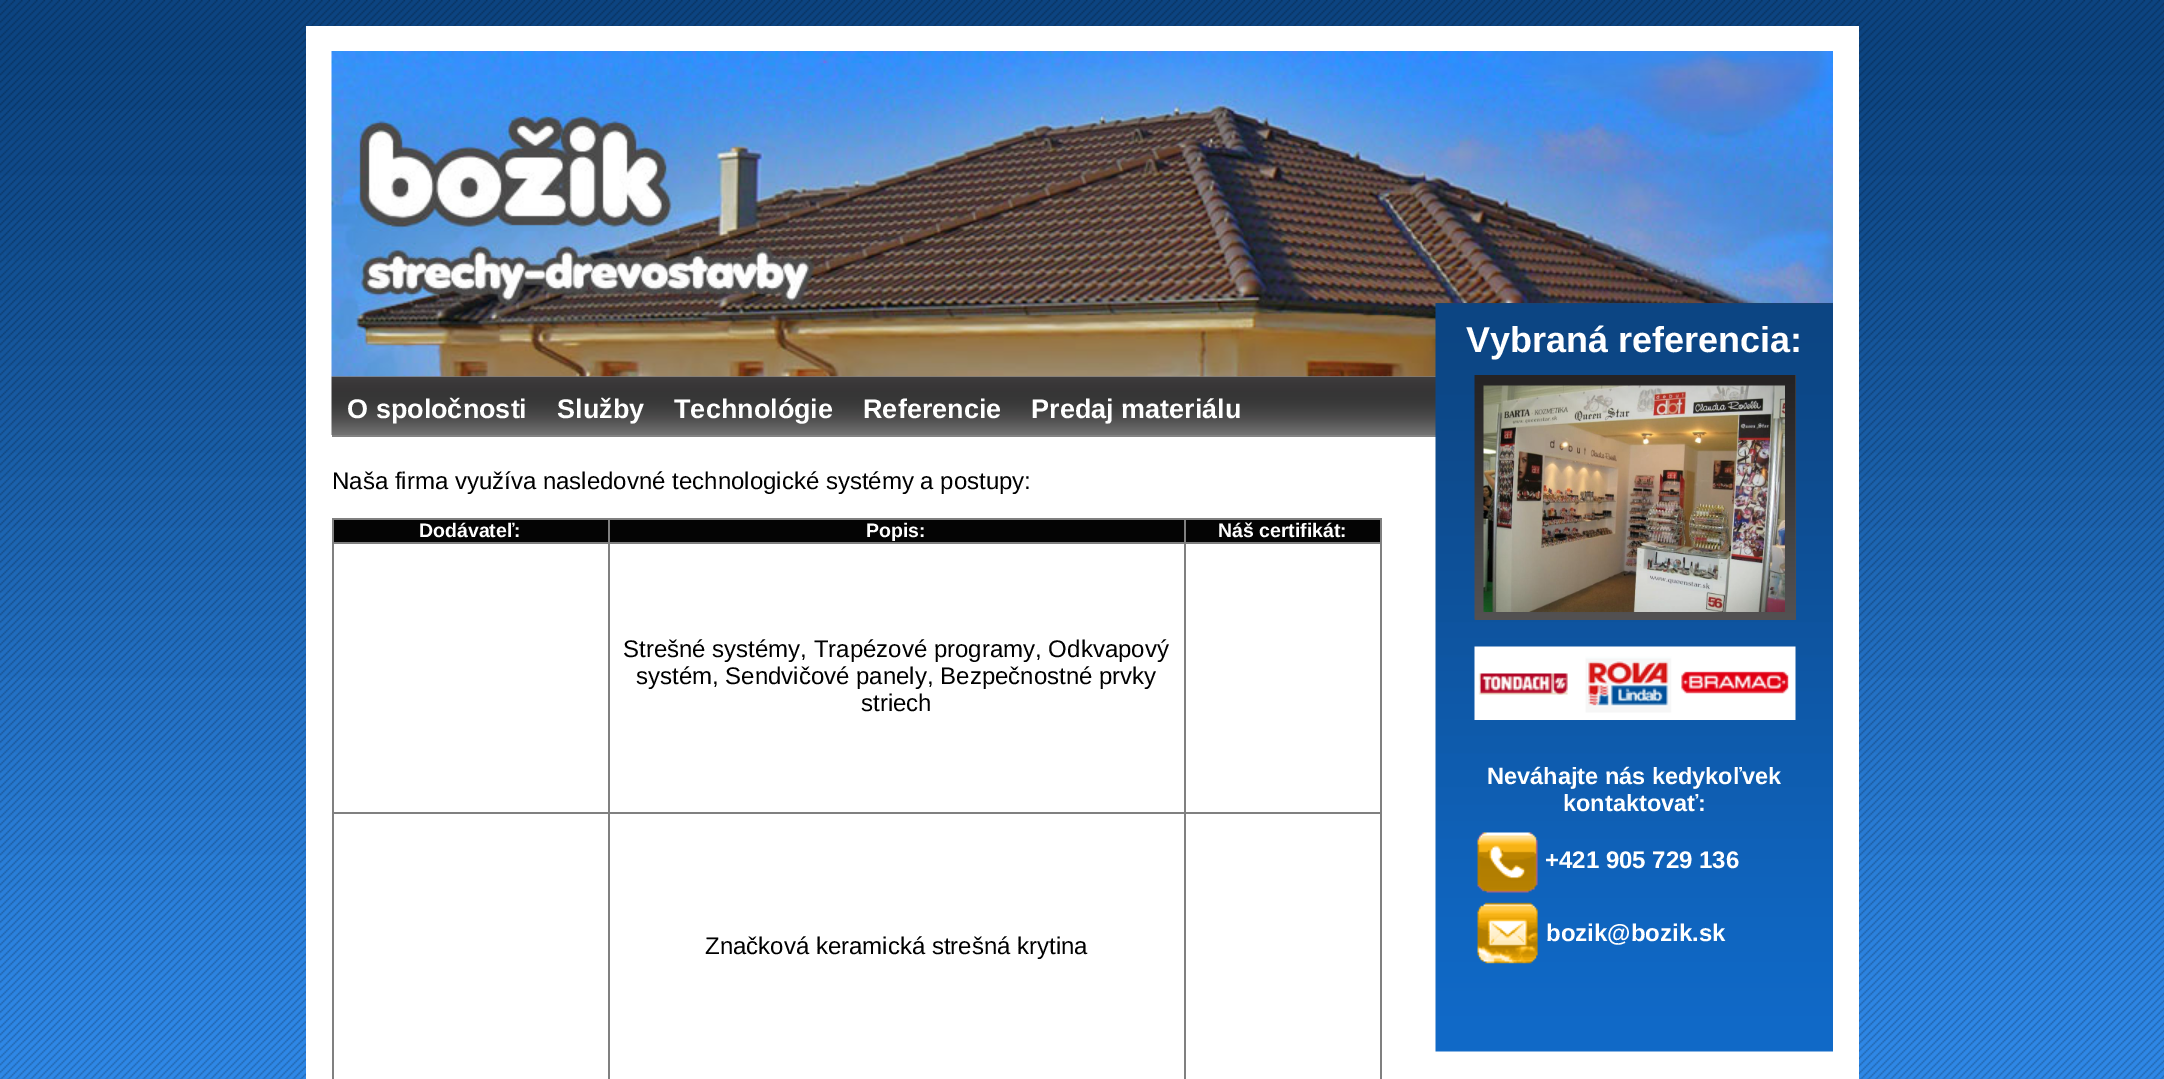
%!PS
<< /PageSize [2164 1079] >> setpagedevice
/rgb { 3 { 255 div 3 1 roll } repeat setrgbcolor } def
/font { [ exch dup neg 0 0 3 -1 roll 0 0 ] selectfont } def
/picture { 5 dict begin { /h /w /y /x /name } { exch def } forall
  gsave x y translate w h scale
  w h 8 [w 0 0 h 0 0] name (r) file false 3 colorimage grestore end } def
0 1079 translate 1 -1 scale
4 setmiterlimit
255 255 255 rgb
0 0 2164 1079 rectfill
(img/1.rgb) 0 0 2164 1079 picture
306 26 1553 1053 rectfill
(img/2.rgb) 331 51 1502 326 picture
130 130 130 rgb
332 435 1104 2 rectfill
(img/3.rgb) 331 376 1105 59 picture
(img/4.rgb) 1435 303 398 749 picture
82 80 81 rgb
1475 375 321 245 rectfill
(img/5.rgb) 1474 375 322 245 picture
(img/6.rgb) 1483 385 302 227 picture
(img/7.rgb) 1474 646 322 74 picture
(img/8.rgb) 1477 832 61 61 picture
(img/9.rgb) 1477 902 61 62 picture
[
  [332 518 1050 2 128 128 128]
  [1380 518 2 561 128 128 128]
  [332 518 2 561 128 128 128]
  [334 520 1046 22 4 4 4]
  [1184 542 198 2 128 128 128]
  [1184 812 198 2 128 128 128]
  [1184 812 2 267 128 128 128]
  [608 812 577 2 128 128 128]
  [1184 542 2 271 128 128 128]
  [608 542 577 2 128 128 128]
  [608 812 2 267 128 128 128]
  [332 812 277 2 128 128 128]
  [608 542 2 271 128 128 128]
  [332 542 277 2 128 128 128]
  [608 518 2 25 128 128 128]
  [1184 518 2 25 128 128 128]
] { aload pop rgb rectfill } forall
/LiberationSans-Bold 27 font
255 255 255 rgb
[
  [(O spoločnosti) 347 418]
  [(Služby) 557 418]
  [(Technológie) 674 418]
  [(Referencie) 863 418]
  [(Predaj materiálu) 1031 418]
] { aload pop moveto show } forall
/LiberationSans-Bold 36 font
1466 352 moveto (Vybraná referencia:) show
/LiberationSans-Bold 23.5 font
1487 784 moveto (Neváhajte nás kedykoľvek) show
1563 811 moveto (kontaktovať:) show
/LiberationSans-Bold 24 font
1545 868 moveto (+421 905 729 136) show
1546 941 moveto (bozik@bozik.sk) show
/LiberationSans-Regular 24 font
0 0 0 rgb
332 489 moveto (Naša firma využíva nasledovné technologické systémy a postupy:) show
/LiberationSans-Bold 19.5 font
255 255 255 rgb
[
  [(Dodávateľ:) 419 537]
  [(Popis:) 866 537]
  [(Náš certifikát:) 1218 537]
] { aload pop moveto show } forall
/LiberationSans-Regular 24 font
0 0 0 rgb
[
  [(Strešné systémy, Trapézové programy, Odkvapový) 623 657]
  [(systém, Sendvičové panely, Bezpečnostné prvky) 636 684]
  [(striech) 861 711]
  [(Značková keramická strešná krytina) 705 954]
] { aload pop moveto show } forall
showpage
